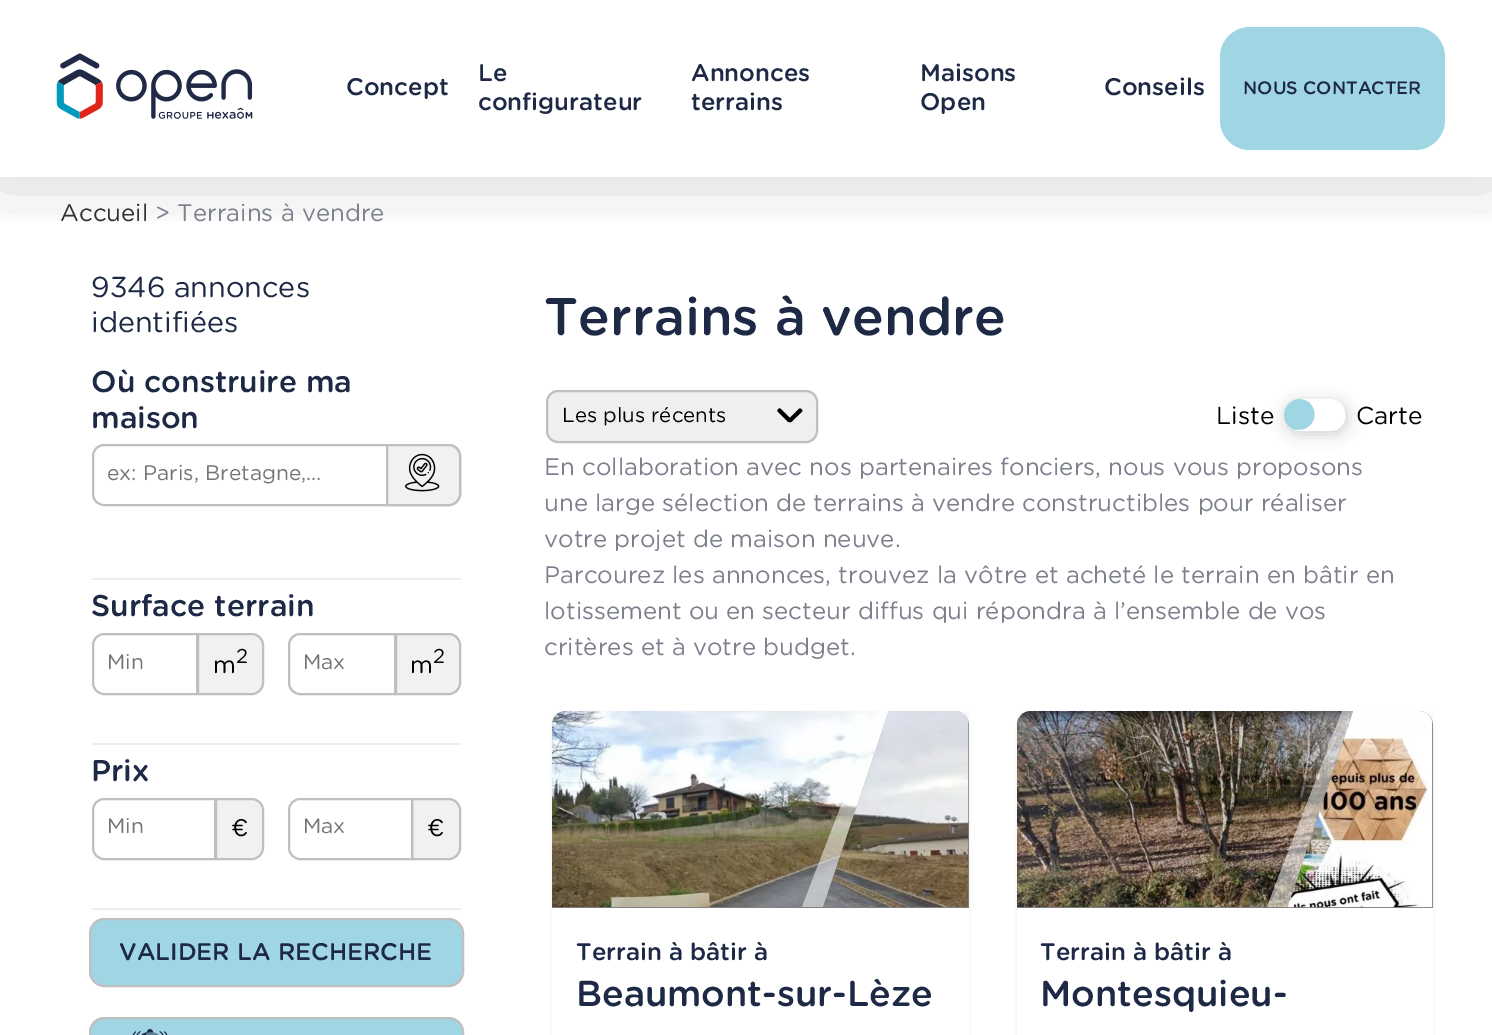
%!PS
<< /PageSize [1492 1035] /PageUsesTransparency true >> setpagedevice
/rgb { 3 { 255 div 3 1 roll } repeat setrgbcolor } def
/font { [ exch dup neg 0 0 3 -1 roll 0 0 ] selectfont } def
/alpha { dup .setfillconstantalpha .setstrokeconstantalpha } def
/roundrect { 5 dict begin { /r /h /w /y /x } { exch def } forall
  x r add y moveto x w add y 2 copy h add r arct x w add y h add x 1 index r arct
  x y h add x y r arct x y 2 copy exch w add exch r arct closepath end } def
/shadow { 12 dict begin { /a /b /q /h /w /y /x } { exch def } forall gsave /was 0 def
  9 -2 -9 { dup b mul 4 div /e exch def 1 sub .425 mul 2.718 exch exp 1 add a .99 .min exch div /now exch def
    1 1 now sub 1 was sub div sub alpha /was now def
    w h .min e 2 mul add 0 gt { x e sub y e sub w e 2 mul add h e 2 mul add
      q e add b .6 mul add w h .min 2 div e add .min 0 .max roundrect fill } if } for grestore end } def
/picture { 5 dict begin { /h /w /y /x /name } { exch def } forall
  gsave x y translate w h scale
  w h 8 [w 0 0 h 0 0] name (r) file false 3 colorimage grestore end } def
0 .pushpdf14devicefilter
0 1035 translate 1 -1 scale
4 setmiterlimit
255 255 255 rgb
0 0 1492 1035 rectfill
gsave
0 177 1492 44 rectclip
0 0 0 rgb
0 -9 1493 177 0 37.5 0.25 shadow
grestore
(img/1.rgb) 56 53 197 66 picture
160 213 228 rgb
1220 27 225 123 30 roundrect fill
238 238 238 rgb
92 578 369 2 rectfill
191 191 191 rgb
2 setlinewidth
93 445 367 60 11 roundrect stroke
241 241 241 rgb
387 445 moveto 449 445 lineto 455 445 460 450 460 456 curveto 460 494 lineto 460 500 455 505 449 505 curveto 387 505 lineto closepath gsave fill grestore
191 191 191 rgb
stroke
(img/2.rgb) 405 453 35 39 picture
238 238 238 rgb
92 743 369 2 rectfill
241 241 241 rgb
198 634 moveto 252 634 lineto 258 634 263 639 263 645 curveto 263 683 lineto 263 689 258 694 252 694 curveto 198 694 lineto closepath gsave fill grestore
191 191 191 rgb
stroke
255 255 255 rgb
104 634 moveto 197 634 lineto 197 694 lineto 104 694 lineto 98 694 93 689 93 683 curveto 93 645 lineto 93 639 98 634 104 634 curveto closepath gsave fill grestore
191 191 191 rgb
stroke
241 241 241 rgb
396 634 moveto 449 634 lineto 455 634 460 639 460 645 curveto 460 683 lineto 460 689 455 694 449 694 curveto 396 694 lineto closepath gsave fill grestore
191 191 191 rgb
stroke
255 255 255 rgb
300 634 moveto 395 634 lineto 395 694 lineto 300 694 lineto 294 694 289 689 289 683 curveto 289 645 lineto 289 639 294 634 300 634 curveto closepath gsave fill grestore
191 191 191 rgb
stroke
238 238 238 rgb
92 908 369 2 rectfill
241 241 241 rgb
216 799 moveto 252 799 lineto 258 799 263 804 263 810 curveto 263 848 lineto 263 854 258 859 252 859 curveto 216 859 lineto closepath gsave fill grestore
191 191 191 rgb
stroke
255 255 255 rgb
104 799 moveto 215 799 lineto 215 859 lineto 104 859 lineto 98 859 93 854 93 848 curveto 93 810 lineto 93 804 98 799 104 799 curveto closepath gsave fill grestore
191 191 191 rgb
stroke
241 241 241 rgb
412 799 moveto 449 799 lineto 455 799 460 804 460 810 curveto 460 848 lineto 460 854 455 859 449 859 curveto 412 859 lineto closepath gsave fill grestore
191 191 191 rgb
stroke
255 255 255 rgb
300 799 moveto 412 799 lineto 412 859 lineto 300 859 lineto 294 859 289 854 289 848 curveto 289 810 lineto 289 804 294 799 300 799 curveto closepath gsave fill grestore
191 191 191 rgb
stroke
160 213 228 rgb
90 919 373 67 14 roundrect gsave fill grestore
191 191 191 rgb
stroke
160 213 228 rgb
90 1018 373 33 14 roundrect gsave fill grestore
191 191 191 rgb
stroke
(img/3.rgb) 132 1029 36 6 picture
239 239 239 rgb
546 390 272 53 12 roundrect fill
(img/4.rgb) 777 408 26 15 picture
191 191 191 rgb
547 391 270 51 11 roundrect stroke
204 204 204 rgb
1286 402 61 32 16 7.5 1 shadow
160 213 228 rgb
1285 400 60 30 15 roundrect gsave fill grestore
stroke
255 255 255 rgb
1300 399 moveto 1316 399 1321 422 1305 429 curveto 1302 430 1298 430 1294 430 curveto 1300 432 1309 431 1315 431 curveto 1321 431 1330 432 1336 430 curveto 1352 423 1347 399 1330 399 curveto closepath fill
0 0 0 rgb
552 713 417 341 14 1.5 0.07 shadow
255 255 255 rgb
552 711 417 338 14 roundrect fill
128 128 128 rgb
566 711 moveto 955 711 lineto 962.5 711 969 717.5 969 725 curveto 969 908 lineto 552 908 lineto 552 725 lineto 552 717.5 558.5 711 566 711 curveto closepath fill
(img/5.rgb) 552 711 337 197 picture
0.5 alpha
255 255 255 rgb
802 907 moveto 823 907 lineto 889 711 lineto 877 711 lineto closepath fill
1 alpha
(img/6.rgb) 823 711 146 197 picture
0 0 0 rgb
1017 713 416 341 14 1.5 0.07 shadow
255 255 255 rgb
1017 711 416 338 14 roundrect fill
128 128 128 rgb
1031 711 moveto 1419 711 lineto 1426.5 711 1433 717.5 1433 725 curveto 1433 908 lineto 1017 908 lineto 1017 725 lineto 1017 717.5 1023.5 711 1031 711 curveto closepath fill
(img/7.rgb) 1017 711 336 197 picture
0.5 alpha
255 255 255 rgb
1267 907 moveto 1288 907 lineto 1353 711 lineto 1342 711 lineto closepath fill
1 alpha
(img/8.rgb) 1288 711 145 197 picture
/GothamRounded-Medium 24 font
29 41 69 rgb
[
  [(Concept) 346 95]
  [(Le) 478 81]
  [(configurateur) 478 110]
  [(Annonces) 691 81]
  [(terrains) 691 110]
  [(Maisons) 920 81]
  [(Open) 920 110]
  [(Conseils) 1104 95]
] { aload pop moveto show } forall
/GothamRounded-Medium 18 font
1243 94 moveto (NOUS CONTACTER) show
/GothamRounded-Regular 24 font
49 49 49 rgb
60 221 moveto (Accueil) show
125 129 141 rgb
155 221 moveto (> Terrains à vendre) show
/GothamRounded-Regular 28.75 font
29 41 69 rgb
91 297 moveto (9346 annonces) show
91 332 moveto (identifiées) show
/GothamRounded-Medium 30 font
91 392 moveto (Où construire ma) show
91 428 moveto (maison) show
/GothamRounded-Regular 21 font
116 116 116 rgb
107 480 moveto (ex: Paris, Bretagne,…) show
/GothamRounded-Medium 30 font
29 41 69 rgb
91 616 moveto (Surface terrain) show
/GothamRounded-Regular 21 font
116 116 116 rgb
107 669 moveto (Min) show
/GothamRounded-Regular 20 font
0 0 0 rgb
236 663 moveto (2) show
/GothamRounded-Regular 24 font
213 673 moveto (m) show
/GothamRounded-Regular 21 font
116 116 116 rgb
303 669 moveto (Max) show
/GothamRounded-Regular 20 font
0 0 0 rgb
433 663 moveto (2) show
/GothamRounded-Regular 24 font
410 673 moveto (m) show
/GothamRounded-Medium 30 font
29 41 69 rgb
91 781 moveto (Prix) show
/GothamRounded-Regular 21 font
116 116 116 rgb
107 833 moveto (Min) show
/GothamRounded-Regular 24 font
0 0 0 rgb
231 836 moveto (€) show
/GothamRounded-Regular 21 font
116 116 116 rgb
303 833 moveto (Max) show
/GothamRounded-Regular 24 font
0 0 0 rgb
427 836 moveto (€) show
/GothamRounded-Medium 24 font
29 41 69 rgb
119 960 moveto (VALIDER LA RECHERCHE) show
/GothamRounded-Medium 52.75 font
544 335 moveto (Terrains à vendre) show
/GothamRounded-Regular 20.5 font
0 0 0 rgb
562 422 moveto (Les plus récents) show
/GothamRounded-Regular 24.5 font
1216 424 moveto (Liste) show
1356 424 moveto (Carte) show
/GothamRounded-Regular 24 font
125 129 141 rgb
[
  [(En collaboration avec nos partenaires fonciers, nous vous proposons) 544 475]
  [(une large sélection de terrains à vendre constructibles pour réaliser) 544 511]
  [(votre projet de maison neuve.) 544 547]
  [(Parcourez les annonces, trouvez la vôtre et acheté le terrain en bâtir en) 544 583]
  [(lotissement ou en secteur diffus qui répondra à l’ensemble de vos) 544 619]
  [(critères et à votre budget.) 544 655]
] { aload pop moveto show } forall
/GothamRounded-Medium 24 font
29 41 69 rgb
576 960 moveto (Terrain à bâtir à) show
/GothamRounded-Medium 36 font
576 1006 moveto (Beaumont-sur-Lèze) show
/GothamRounded-Medium 24 font
1040 960 moveto (Terrain à bâtir à) show
/GothamRounded-Medium 36 font
1040 1006 moveto (Montesquieu-) show
.poppdf14devicefilter showpage
